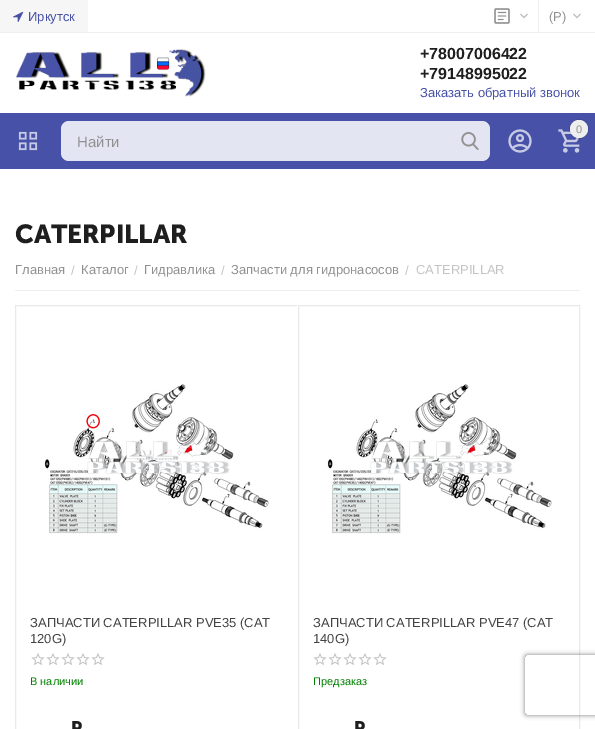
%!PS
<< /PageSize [595 729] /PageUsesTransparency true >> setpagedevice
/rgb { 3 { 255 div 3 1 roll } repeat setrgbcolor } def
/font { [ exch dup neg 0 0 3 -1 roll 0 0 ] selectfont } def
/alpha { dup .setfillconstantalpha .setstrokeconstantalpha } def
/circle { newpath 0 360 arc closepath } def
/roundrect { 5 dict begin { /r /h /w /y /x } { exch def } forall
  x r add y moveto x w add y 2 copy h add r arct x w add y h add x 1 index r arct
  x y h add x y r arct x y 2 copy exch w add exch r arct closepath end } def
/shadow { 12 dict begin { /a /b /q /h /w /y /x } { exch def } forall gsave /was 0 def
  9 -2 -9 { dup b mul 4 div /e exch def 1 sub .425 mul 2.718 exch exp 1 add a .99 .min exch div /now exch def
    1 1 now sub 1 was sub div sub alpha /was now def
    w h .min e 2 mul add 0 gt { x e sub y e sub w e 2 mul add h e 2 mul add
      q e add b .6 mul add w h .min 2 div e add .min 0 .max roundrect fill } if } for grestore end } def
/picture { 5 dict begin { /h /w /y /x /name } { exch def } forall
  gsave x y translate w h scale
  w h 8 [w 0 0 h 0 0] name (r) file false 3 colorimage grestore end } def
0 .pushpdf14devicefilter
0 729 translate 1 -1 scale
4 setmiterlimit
255 255 255 rgb
0 0 595 729 rectfill
238 238 238 rgb
0 32 595 1 rectfill
246 246 246 rgb
0 0 88 32 rectfill
(img/1.rgb) 13 11 11 11 picture
(img/2.rgb) 494 8 16 16 picture
(img/3.rgb) 520 13 8 6 picture
238 238 238 rgb
538 0 1 32 rectfill
(img/3.rgb) 573 13 8 6 picture
(img/4.rgb) 15 49 191 48 picture
70 81 167 rgb
0 113 595 56 rectfill
(img/5.rgb) 508 129 24 24 picture
(img/6.rgb) 558 129 22 24 picture
0.1 alpha
0 0 0 rgb
579 129 9.5 circle stroke
1 alpha
238 238 238 rgb
579 129 9 circle fill
(img/7.rgb) 18 131 20 20 picture
227 229 242 rgb
61 121 429 40 8 roundrect fill
(img/8.rgb) 461 132 18 18 picture
238 238 238 rgb
15 290 565 1 rectfill
233 233 233 rgb
15.5 305.5 282 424 rectstroke
(img/9.rgb) 44 384 225 150 picture
(img/10.rgb) 31 653 14 12 picture
(img/10.rgb) 46 653 14 12 picture
(img/10.rgb) 61 653 14 12 picture
(img/10.rgb) 76 653 14 12 picture
(img/10.rgb) 91 653 14 12 picture
255 255 255 rgb
297.5 304.5 283 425 rectstroke
233 233 233 rgb
298.5 305.5 281 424 rectstroke
(img/11.rgb) 327 384 225 150 picture
(img/10.rgb) 313 653 14 12 picture
(img/10.rgb) 328 653 14 12 picture
(img/10.rgb) 343 653 14 12 picture
(img/10.rgb) 358 653 14 12 picture
(img/10.rgb) 373 653 14 12 picture
gsave
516 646 moveto 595 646 lineto 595 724 lineto 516 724 lineto closepath 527 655 moveto 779 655 lineto 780 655 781 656 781 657 curveto 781 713 lineto 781 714 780 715 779 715 curveto 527 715 lineto 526 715 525 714 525 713 curveto 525 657 lineto 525 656 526 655 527 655 curveto closepath eoclip newpath
128 128 128 rgb
525 655 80 60 2 2.5 1 shadow
grestore
/LiberationSans-Regular 13 font
70 81 167 rgb
28 21 moveto (Иркутск) show
145 145 145 rgb
549 21 moveto (\(Р\)) show
/LiberationSans-Bold 16 font
30 30 30 rgb
420 59 moveto (+78007006422) show
420 79 moveto (+79148995022) show
/LiberationSans-Regular 13 font
70 81 167 rgb
420 97 moveto (Заказать обратный звонок) show
/LiberationSans-Regular 11 font
145 145 145 rgb
576 133 moveto (0) show
/LiberationSans-Regular 15 font
77 147 moveto (Найти) show
/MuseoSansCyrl-Bold 26 font
30 30 30 rgb
15 243 moveto (CATERPILLAR) show
/LiberationSans-Regular 13 font
145 145 145 rgb
15 274 moveto (Главная) show
196 196 196 rgb
71 275 moveto (/) show
145 145 145 rgb
81 274 moveto (Каталог) show
196 196 196 rgb
134 275 moveto (/) show
145 145 145 rgb
144 274 moveto (Гидравлика) show
196 196 196 rgb
221 275 moveto (/) show
145 145 145 rgb
231 274 moveto (Запчасти для гидронасосов) show
196 196 196 rgb
405 275 moveto (/) show
416 274 moveto (CATERPILLAR) show
67 67 67 rgb
30 627 moveto (ЗАПЧАСТИ CATERPILLAR PVE35 \(CAT) show
30 643 moveto (120G\)) show
/LiberationSans-Regular 11 font
0 128 0 rgb
30 685 moveto (В наличии) show
/MuseoSansCyrl-Bold 18 font
30 30 30 rgb
71 734 moveto (Р) show
/LiberationSans-Regular 13 font
67 67 67 rgb
313 627 moveto (ЗАПЧАСТИ CATERPILLAR PVE47 \(CAT) show
313 643 moveto (140G\)) show
/LiberationSans-Regular 11 font
0 128 0 rgb
313 685 moveto (Предзаказ) show
/MuseoSansCyrl-Bold 18 font
30 30 30 rgb
354 734 moveto (Р) show
.poppdf14devicefilter showpage
